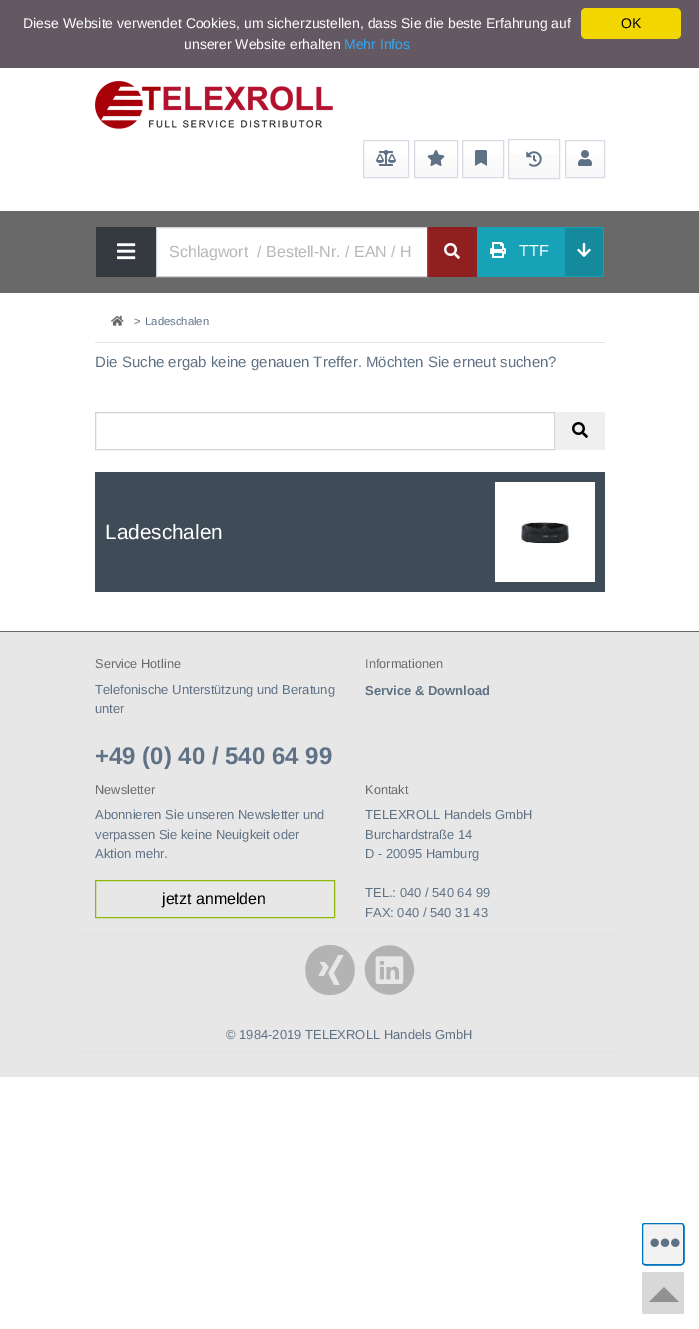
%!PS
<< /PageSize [699 1329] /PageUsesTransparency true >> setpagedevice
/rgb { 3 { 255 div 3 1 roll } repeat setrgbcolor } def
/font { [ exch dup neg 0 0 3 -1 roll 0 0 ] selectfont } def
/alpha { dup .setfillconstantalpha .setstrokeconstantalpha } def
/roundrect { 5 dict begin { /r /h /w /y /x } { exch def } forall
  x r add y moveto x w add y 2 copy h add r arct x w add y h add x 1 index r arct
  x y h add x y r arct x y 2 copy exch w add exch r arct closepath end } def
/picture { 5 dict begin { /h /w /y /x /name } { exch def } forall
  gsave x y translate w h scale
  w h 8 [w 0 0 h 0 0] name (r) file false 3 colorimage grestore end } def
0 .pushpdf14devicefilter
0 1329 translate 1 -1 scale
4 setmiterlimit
255 255 255 rgb
0 0 699 1329 rectfill
100 88 98 rgb
0 0 699 68 rectfill
241 214 0 rgb
581 8 100 31 5 roundrect fill
(img/1.rgb) 95 81 238 48 picture
gsave 364 154 moveto 408 154 lineto 408 177 lineto 364 177 lineto closepath clip newpath
<< /ShadingType 2 /ColorSpace /DeviceRGB /Coords [386 141 386 177] /Extend [true true] /Function << /FunctionType 2 /Domain [0 1] /C0 [1 1 1] /C1 [0.973 0.973 0.98] /N 1 >> >> shfill grestore
218 218 229 rgb
363.5 140.5 45 37 rectstroke
(img/2.rgb) 376 150 20 16 picture
gsave 415 154 moveto 457 154 lineto 457 177 lineto 415 177 lineto closepath clip newpath
<< /ShadingType 2 /ColorSpace /DeviceRGB /Coords [436 141 436 177] /Extend [true true] /Function << /FunctionType 2 /Domain [0 1] /C0 [1 1 1] /C1 [0.973 0.973 0.98] /N 1 >> >> shfill grestore
414.5 140.5 43 37 rectstroke
(img/3.rgb) 427 150 18 16 picture
gsave 463 154 moveto 503 154 lineto 503 177 lineto 463 177 lineto closepath clip newpath
<< /ShadingType 2 /ColorSpace /DeviceRGB /Coords [483 141 483 177] /Extend [true true] /Function << /FunctionType 2 /Domain [0 1] /C0 [1 1 1] /C1 [0.973 0.973 0.98] /N 1 >> >> shfill grestore
462.5 140.5 41 37 rectstroke
(img/4.rgb) 475 150 12 16 picture
gsave 509 154 moveto 559 154 lineto 559 178 lineto 509 178 lineto closepath clip newpath
<< /ShadingType 2 /ColorSpace /DeviceRGB /Coords [534 140 534 178] /Extend [true true] /Function << /FunctionType 2 /Domain [0 1] /C0 [1 1 1] /C1 [0.973 0.973 0.98] /N 1 >> >> shfill grestore
508.5 139.5 51 39 rectstroke
(img/5.rgb) 526 151 16 16 picture
gsave 566 154 moveto 604 154 lineto 604 177 lineto 566 177 lineto closepath clip newpath
<< /ShadingType 2 /ColorSpace /DeviceRGB /Coords [585 141 585 177] /Extend [true true] /Function << /FunctionType 2 /Domain [0 1] /C0 [1 1 1] /C1 [0.973 0.973 0.98] /N 1 >> >> shfill grestore
565.5 140.5 39 37 rectstroke
(img/6.rgb) 578 150 14 16 picture
105 105 106 rgb
0 211 699 82 rectfill
52 58 64 rgb
96 227 60 50 rectfill
(img/7.rgb) 117 243 19 17 picture
255 255 255 rgb
156.5 227.5 moveto 427.5 227.5 lineto 427.5 276.5 lineto 156.5 276.5 lineto closepath gsave fill grestore
206 212 218 rgb
stroke
0.7 alpha
161 0 0 rgb
427 227 50 50 rectfill
1 alpha
(img/8.rgb) 444 243 16 16 picture
23 162 184 rgb
477 227 127 50 rectfill
(img/9.rgb) 490 242 16 16 picture
20 138 156 rgb
565 228 38 48 rectfill
(img/10.rgb) 577 243 14 14 picture
(img/11.rgb) 111 315 13 11 picture
230 230 230 rgb
95 342 510 1 rectfill
206 212 218 rgb
95.5 412.5 459 37 rectstroke
239 239 239 rgb
555 412 50 38 rectfill
(img/12.rgb) 572 422 16 16 picture
63 76 88 rgb
95 472 510 120 rectfill
255 255 255 rgb
495 482 100 100 rectfill
(img/13.rgb) 521 521 48 23 picture
[
  [0 632 699 445 231 231 231]
  [0 631 699 1 101 101 101]
  [80 1052 540 1 222 226 230]
] { aload pop rgb rectfill } forall
143 184 9 rgb
95.5 880.5 239 37 rectstroke
222 226 230 rgb
80 934 540 1 rectfill
180 179 179 rgb
330 945 moveto 297 945 297 995 330 995 curveto 363 995 363 945 330 945 curveto closepath 318 976 moveto 323 967 lineto 319 962 lineto 325 962 lineto 329 967 lineto 324 976 lineto closepath 340 985 moveto 334 985 lineto 328 973 lineto 338 955 lineto 344 955 lineto 334 973 lineto closepath fill
(img/14.rgb) 364 945 51 50 picture
0 117 191 rgb
642.5 1223.5 41 41 2.5 roundrect stroke
642.5 1223.5 41 41 2.5 roundrect stroke
642.5 1223.5 41 41 2.5 roundrect stroke
642.5 1223.5 41 41 2.5 roundrect stroke
642.5 1223.5 41 41 2.5 roundrect stroke
242 242 242 rgb
642.5 1223.5 41 41 2.5 roundrect gsave fill grestore
0 117 191 rgb
stroke
(img/15.rgb) 650 1238 30 9 picture
216 216 216 rgb
642 1272 42 42 2 roundrect fill
145 145 145 rgb
679 1302 moveto 649 1302 lineto 664 1287 lineto closepath fill
/LiberationSans-Regular 14 font
255 255 255 rgb
23 28 moveto (Diese Website verwendet Cookies, um sicherzustellen, dass Sie die beste Erfahrung auf) show
184 49 moveto (unserer Website erhalten) show
49 168 240 rgb
344 49 moveto (Mehr Infos) show
0 0 0 rgb
621 28 moveto (OK) show
/LiberationSans-Regular 16 font
183 183 183 rgb
169 257 moveto (Schlagwort  / Bestell-Nr. / EAN / H) show
255 255 255 rgb
519 256 moveto (TTF) show
/LiberationSans-Regular 11.25 font
105 105 106 rgb
134 325 moveto (>) show
95 114 133 rgb
145 325 moveto (Ladeschalen) show
/LiberationSans-Regular 15 font
95 367 moveto (Die Suche ergab keine genauen Treffer. Möchten Sie erneut suchen?) show
/LiberationSans-Regular 20.75 font
255 255 255 rgb
105 539 moveto (Ladeschalen) show
/LiberationSans-Regular 12.75 font
105 105 106 rgb
95 668 moveto (Service Hotline) show
/LiberationSans-Regular 13 font
95 114 133 rgb
95 694 moveto (Telefonische Unterstützung und Beratung) show
95 713 moveto (unter) show
/LiberationSans-Bold 24 font
95 764 moveto (+49 \(0\) 40 / 540 64 99) show
/LiberationSans-Regular 12.75 font
105 105 106 rgb
365 668 moveto (Informationen) show
/LiberationSans-Bold 13 font
95 114 133 rgb
365 695 moveto (Service & Download) show
/LiberationSans-Regular 12.75 font
105 105 106 rgb
95 794 moveto (Newsletter) show
/LiberationSans-Regular 13 font
95 114 133 rgb
[
  [(Abonnieren Sie unseren Newsletter und) 95 819]
  [(verpassen Sie keine Neuigkeit oder) 95 839]
  [(Aktion mehr.) 95 858]
] { aload pop moveto show } forall
/LiberationSans-Regular 16 font
0 0 0 rgb
162 904 moveto (jetzt anmelden) show
/LiberationSans-Regular 12.75 font
105 105 106 rgb
365 794 moveto (Kontakt) show
/LiberationSans-Regular 13 font
95 114 133 rgb
[
  [(TELEXROLL Handels GmbH) 365 819]
  [(Burchardstraße 14) 365 839]
  [(D - 20095 Hamburg) 365 858]
  [(TEL.: 040 / 540 64 99) 365 897]
  [(FAX: 040 / 540 31 43) 365 917]
  [(© 1984-2019 TELEXROLL Handels GmbH) 226 1039]
] { aload pop moveto show } forall
.poppdf14devicefilter showpage
